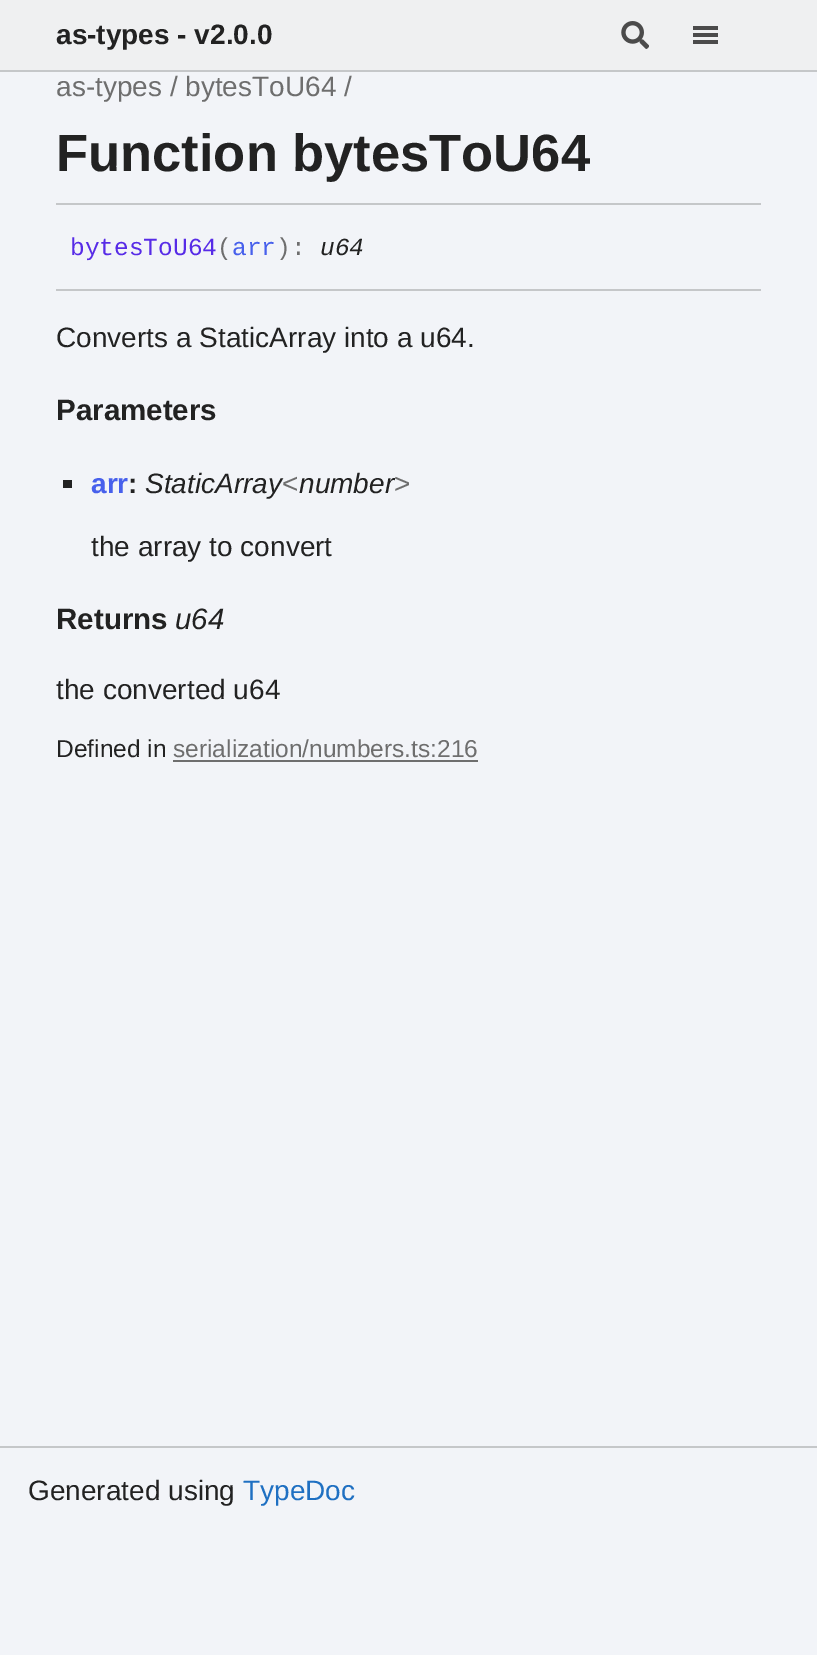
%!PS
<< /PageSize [817 1655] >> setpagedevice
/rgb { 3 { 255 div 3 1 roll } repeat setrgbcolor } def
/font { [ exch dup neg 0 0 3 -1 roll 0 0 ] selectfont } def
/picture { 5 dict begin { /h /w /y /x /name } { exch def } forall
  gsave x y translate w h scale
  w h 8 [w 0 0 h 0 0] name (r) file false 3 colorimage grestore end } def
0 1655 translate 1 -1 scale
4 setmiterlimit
242 244 248 rgb
0 0 817 1655 rectfill
239 240 241 rgb
0 0 817 70 rectfill
197 199 201 rgb
0 70 817 2 rectfill
(img/1.rgb) 621 21 28 28 picture
[
  [693 26 25 4 75 75 75]
  [693 33 25 4 75 75 75]
  [693 40 25 4 75 75 75]
  [56 203 705 2 197 199 201]
  [56 289 705 2 197 199 201]
  [63 480 9 8 34 34 34]
  [173 760 305 2 110 110 110]
  [0 1446 817 2 197 199 201]
] { aload pop rgb rectfill } forall
/LiberationSans-Bold 28 font
34 34 34 rgb
56 44 moveto (as-types - v2.0.0) show
/LiberationSans-Regular 28 font
110 110 110 rgb
56 96 moveto (as-types / bytesToU64 /) show
/LiberationSans-Bold 52.5 font
34 34 34 rgb
56 171 moveto (Function bytesToU64) show
/LiberationMono-Regular 24.5 font
87 43 231 rgb
70 255 moveto (bytesToU64) show
110 110 110 rgb
217 255 moveto (\() show
71 96 236 rgb
232 255 moveto (arr) show
110 110 110 rgb
276 255 moveto (\):) show
/LiberationMono-Italic 24.5 font
34 34 34 rgb
320 255 moveto (u64) show
/LiberationSans-Regular 28 font
56 347 moveto (Converts a StaticArray into a u64.) show
/LiberationSans-Bold 29.5 font
56 420 moveto (Parameters) show
/LiberationSans-Bold 28 font
71 96 236 rgb
91 493 moveto (arr) show
34 34 34 rgb
128 493 moveto (:) show
/LiberationSans-Italic 28 font
145 493 moveto (StaticArray) show
/LiberationSans-Regular 28 font
110 110 110 rgb
282 493 moveto (<) show
/LiberationSans-Italic 28 font
34 34 34 rgb
299 493 moveto (number) show
/LiberationSans-Regular 28 font
110 110 110 rgb
394 493 moveto (>) show
34 34 34 rgb
91 556 moveto (the array to convert) show
/LiberationSans-Bold 29.5 font
56 629 moveto (Returns) show
/LiberationSans-Italic 29.5 font
175 629 moveto (u64) show
/LiberationSans-Regular 28 font
56 699 moveto (the converted u64) show
/LiberationSans-Regular 24.5 font
56 757 moveto (Defined in) show
110 110 110 rgb
173 757 moveto (serialization/numbers.ts:216) show
/LiberationSans-Regular 28 font
34 34 34 rgb
28 1500 moveto (Generated using) show
31 112 194 rgb
243 1500 moveto (TypeDoc) show
showpage
